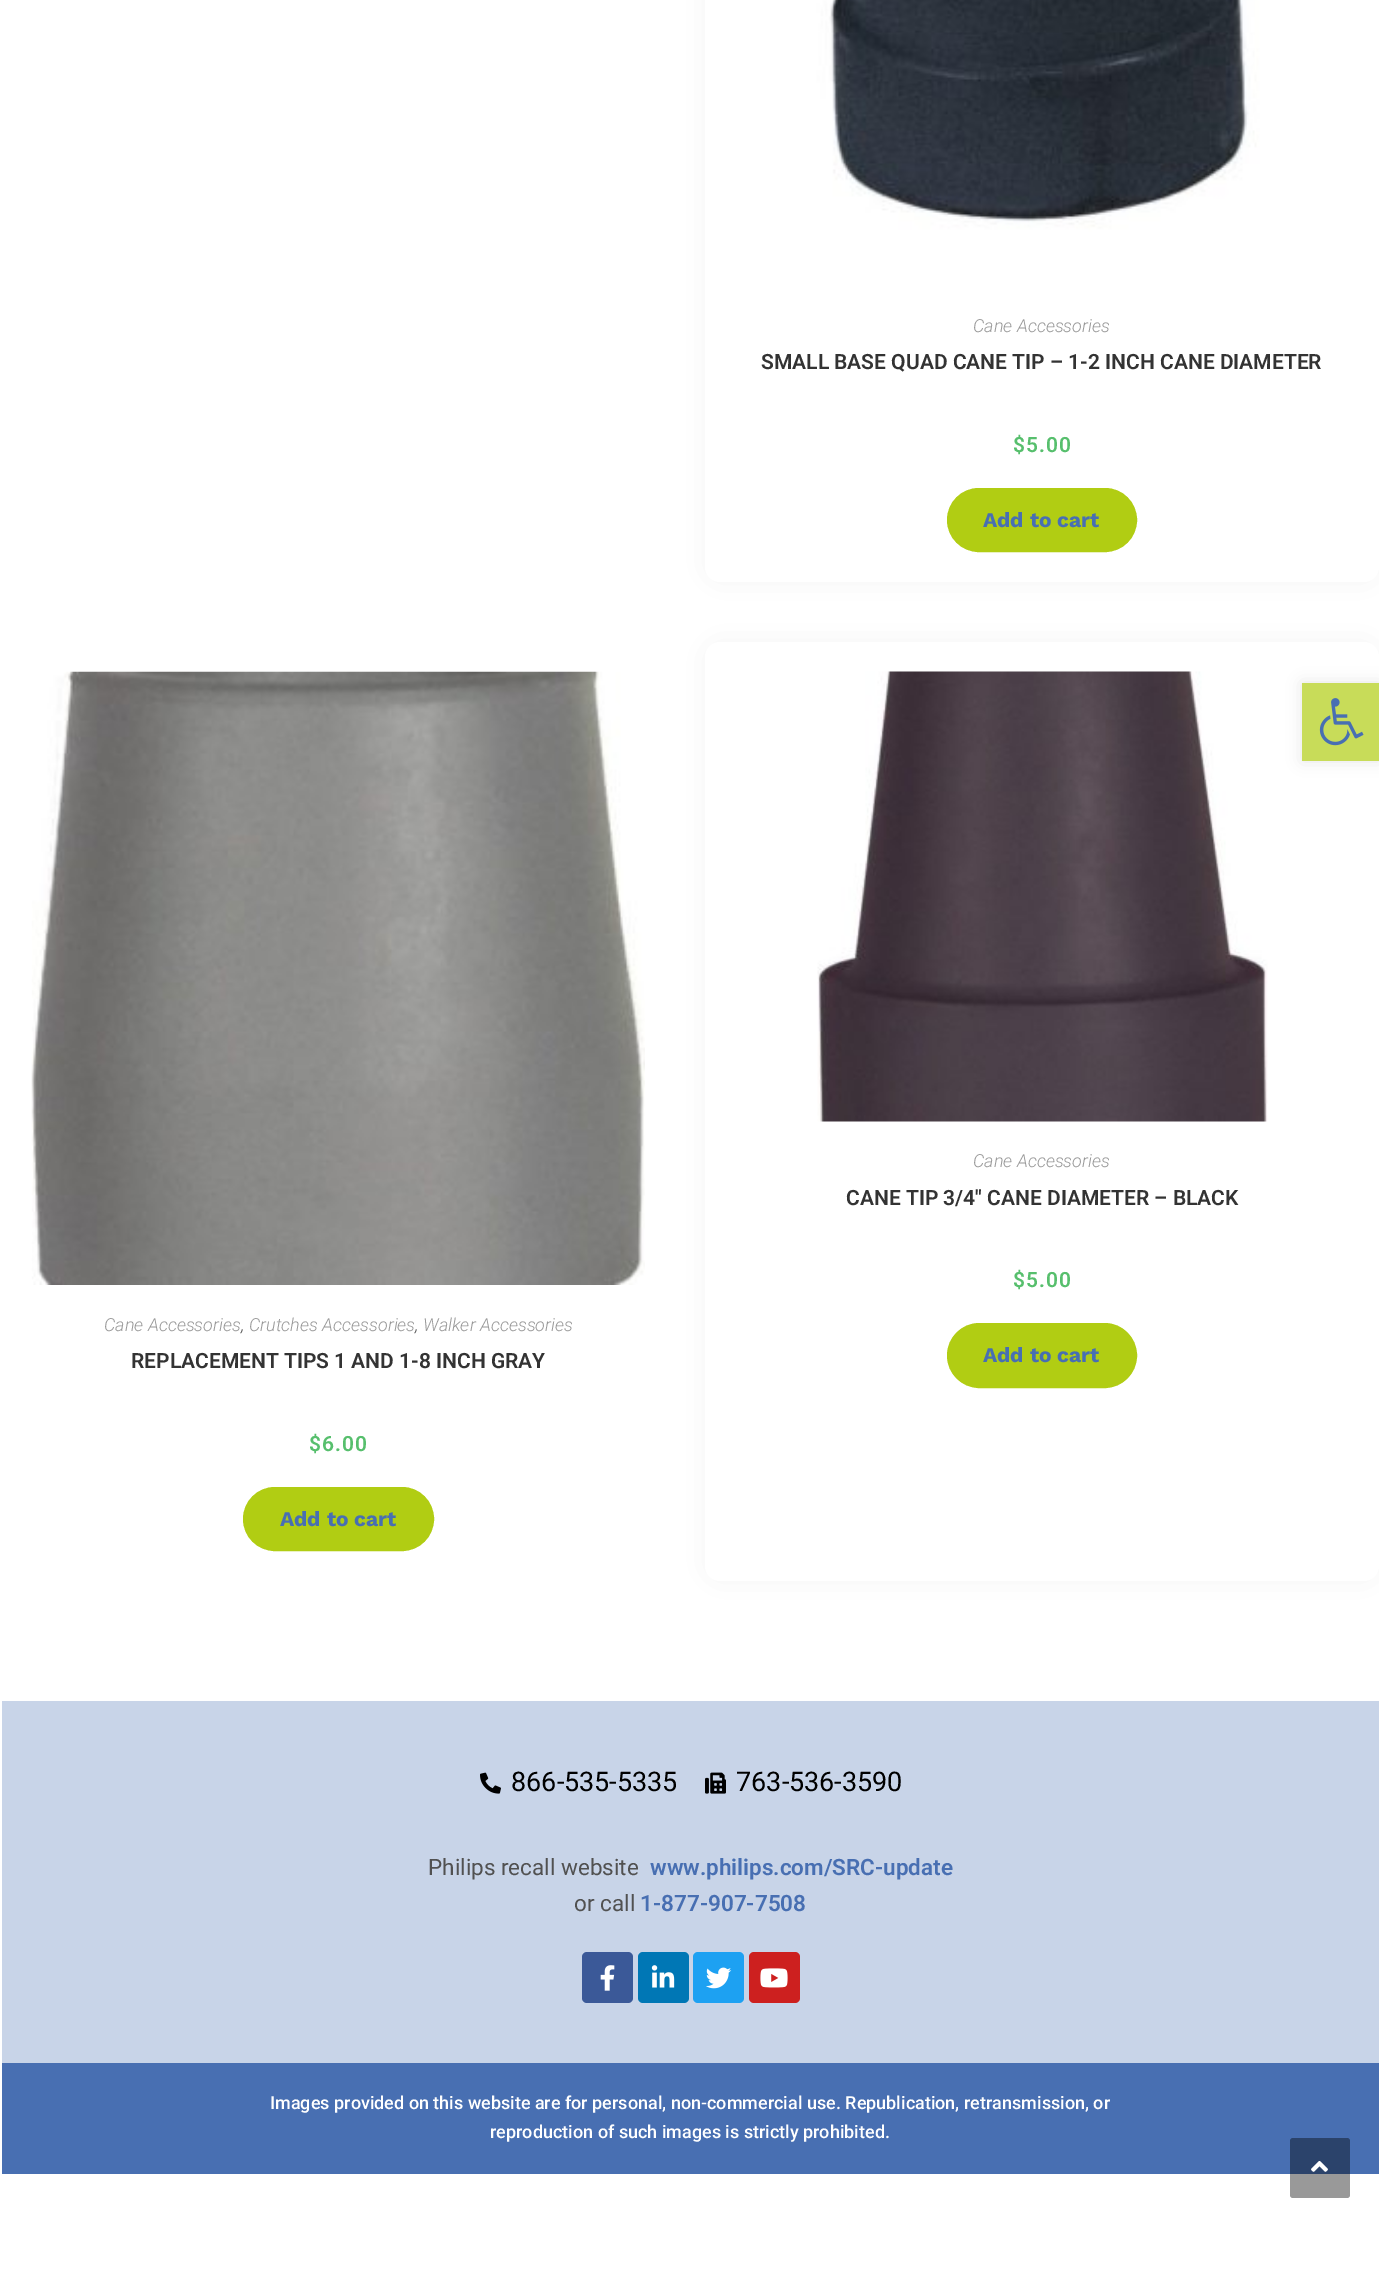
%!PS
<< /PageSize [1379 2272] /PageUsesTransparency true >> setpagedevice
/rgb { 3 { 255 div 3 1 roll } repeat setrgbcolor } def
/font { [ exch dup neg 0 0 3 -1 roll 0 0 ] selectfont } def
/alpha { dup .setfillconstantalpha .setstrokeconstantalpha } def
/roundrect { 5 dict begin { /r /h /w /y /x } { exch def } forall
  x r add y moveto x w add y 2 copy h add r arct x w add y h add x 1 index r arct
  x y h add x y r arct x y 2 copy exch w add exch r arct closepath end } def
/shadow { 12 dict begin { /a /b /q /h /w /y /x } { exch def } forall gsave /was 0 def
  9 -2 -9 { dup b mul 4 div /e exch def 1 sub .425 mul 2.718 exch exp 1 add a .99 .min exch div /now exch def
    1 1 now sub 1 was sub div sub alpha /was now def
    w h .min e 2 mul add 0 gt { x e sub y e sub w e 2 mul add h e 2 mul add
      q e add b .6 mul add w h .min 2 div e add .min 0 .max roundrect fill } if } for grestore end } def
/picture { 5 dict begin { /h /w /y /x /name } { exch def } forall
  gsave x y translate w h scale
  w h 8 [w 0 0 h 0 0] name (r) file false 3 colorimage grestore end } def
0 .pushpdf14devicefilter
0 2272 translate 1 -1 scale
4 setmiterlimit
255 255 255 rgb
0 0 1379 2272 rectfill
221 221 221 rgb
705 -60 674 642 15 15 0.3 shadow
255 255 255 rgb
705 -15 674 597 15 roundrect fill
(img/1.rgb) 735 0 613 286 picture
177 205 19 rgb
951 492 182 56 28 roundrect gsave fill grestore
8 setlinewidth
stroke
221 221 221 rgb
705 642 674 939 15 15 0.3 shadow
255 255 255 rgb
705 642 674 939 15 roundrect fill
(img/2.rgb) 817 671 451 451 picture
177 205 19 rgb
951 1327 182 57 28.5 roundrect gsave fill grestore
stroke
(img/4.rgb) 99 671 480 1 picture
(img/3.rgb) 31 671 614 614 picture
247 1491 183 56 28 roundrect gsave fill grestore
stroke
200 212 232 rgb
2 1701 1377 362 rectfill
(img/5.rgb) 480 1772 21 22 picture
(img/6.rgb) 705 1772 21 22 picture
59 89 152 rgb
582 1952 51 51 5 roundrect fill
(img/7.rgb) 600 1965 15 26 picture
0 119 181 rgb
638 1952 51 51 5 roundrect fill
(img/8.rgb) 651 1965 24 23 picture
29 161 242 rgb
693 1952 51 51 5 roundrect fill
(img/9.rgb) 706 1967 26 22 picture
205 32 31 rgb
749 1952 51 51 5 roundrect fill
(img/10.rgb) 760 1968 28 20 picture
72 111 178 rgb
2 2063 1377 111 rectfill
0 0 0 rgb
1302 683 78 78 0 7.5 0.1 shadow
200 220 89 rgb
1302 683 77 78 rectfill
(img/11.rgb) 1319 698 45 48 picture
0.4 alpha
0 0 0 rgb
1290 2138 60 60 3 roundrect fill
1 alpha
(img/12.rgb) 1311 2161 17 11 picture
/Roboto-LightItalic 18 font
153 153 153 rgb
973 332 moveto (Cane Accessories) show
/Roboto-SemiBold 21 font
51 51 51 rgb
761 369 moveto (SMALL BASE QUAD CANE TIP – 1-2 INCH CANE DIAMETER) show
87 191 109 rgb
1013 452 moveto 1 0 ($5.00) ashow
/WorkSans-Bold 21 font
72 111 178 rgb
983 527 moveto (Add to cart) show
/Roboto-LightItalic 18 font
153 153 153 rgb
973 1167 moveto (Cane Accessories) show
/Roboto-SemiBold 21 font
51 51 51 rgb
846 1205 moveto (CANE TIP 3/4″ CANE DIAMETER – BLACK) show
87 191 109 rgb
1013 1287 moveto 1 0 ($5.00) ashow
/WorkSans-Bold 21 font
72 111 178 rgb
983 1362 moveto (Add to cart) show
/Roboto-LightItalic 18 font
153 153 153 rgb
104 1331 moveto (Cane Accessories) show
81 81 81 rgb
241 1331 moveto (,) show
153 153 153 rgb
249 1331 moveto (Crutches Accessories) show
81 81 81 rgb
415 1331 moveto (,) show
153 153 153 rgb
423 1331 moveto (Walker Accessories) show
/Roboto-SemiBold 21 font
51 51 51 rgb
131 1368 moveto (REPLACEMENT TIPS 1 AND 1-8 INCH GRAY) show
87 191 109 rgb
309 1451 moveto 1 0 ($6.00) ashow
/WorkSans-Bold 21 font
72 111 178 rgb
280 1526 moveto (Add to cart) show
/Roboto-Regular 27 font
0 0 0 rgb
511 1791 moveto (866-535-5335) show
736 1791 moveto (763-536-3590) show
/Roboto-Regular 22.5 font
81 81 81 rgb
428 1875 moveto (Philips recall website) show
/Roboto-SemiBold 22.5 font
72 111 178 rgb
650 1875 moveto (www.philips.com/SRC-update) show
/Roboto-Regular 22.5 font
81 81 81 rgb
574 1911 moveto (or call) show
/Roboto-SemiBold 22.5 font
72 111 178 rgb
640 1911 moveto (1-877-907-7508) show
/Roboto-Medium 18 font
255 255 255 rgb
270 2109 moveto (Images provided on this website are for personal, non-commercial use. Republication, retransmission, or) show
490 2138 moveto (reproduction of such images is strictly prohibited.) show
.poppdf14devicefilter showpage
